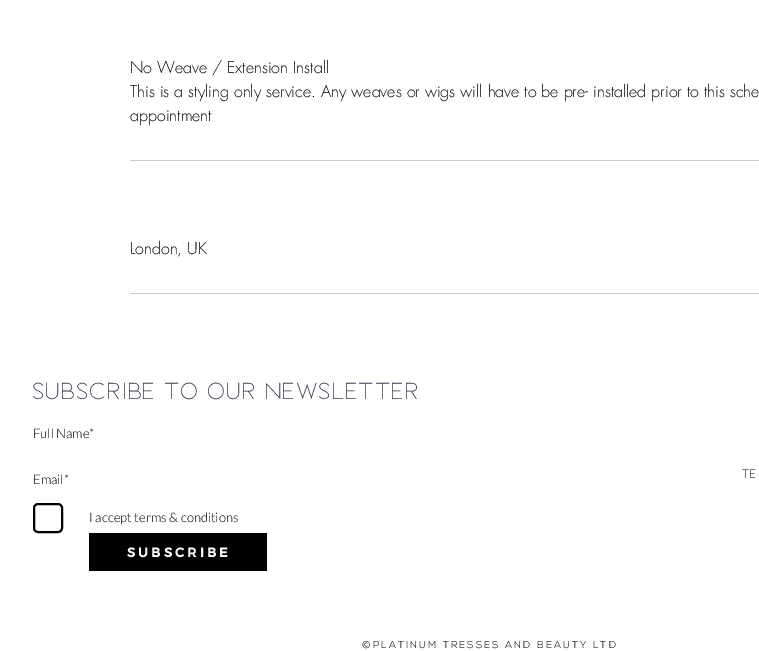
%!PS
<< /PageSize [759 651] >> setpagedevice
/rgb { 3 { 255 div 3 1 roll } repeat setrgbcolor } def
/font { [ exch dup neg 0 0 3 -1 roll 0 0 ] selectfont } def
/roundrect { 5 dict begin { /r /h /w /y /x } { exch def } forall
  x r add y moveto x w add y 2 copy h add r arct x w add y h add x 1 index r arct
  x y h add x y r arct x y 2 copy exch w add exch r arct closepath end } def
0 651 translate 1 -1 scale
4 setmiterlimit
255 255 255 rgb
0 0 759 651 rectfill
204 204 204 rgb
130 160 629 1 rectfill
130 293 629 1 rectfill
0 0 0 rgb
2 setlinewidth
34 504 28 28 4 roundrect stroke
89 533 178 38 rectfill
/futura-Light 16 font
[
  [(No Weave / Extension Install) 130 73]
  [(This is a styling only service. Any weaves or wigs will have to be pre- installed prior to this sche) 130 97]
  [(appointment) 130 121]
  [(London, UK) 130 254]
] { aload pop moveto show } forall
/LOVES-Regular 25 font
55 59 77 rgb
33 399 moveto (SUBSCRIBE TO OUR NEWSLETTER) show
/Lato-Light 13 font
0 0 0 rgb
[
  [(Full Name*) 33 438]
  [(Email*) 33 484]
  [(I accept terms & conditions) 89 522]
] { aload pop moveto show } forall
/Montserrat-Bold 13 font
250 250 250 rgb
127 557 moveto (S U B S C R I B E) show
/Lato-Light 12 font
0 0 0 rgb
742 478 moveto (TE) show
/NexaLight-Light 10 font
362 648 moveto 2 0 (©PLATINUM TRESSES AND BEAUTY LTD) ashow
showpage
